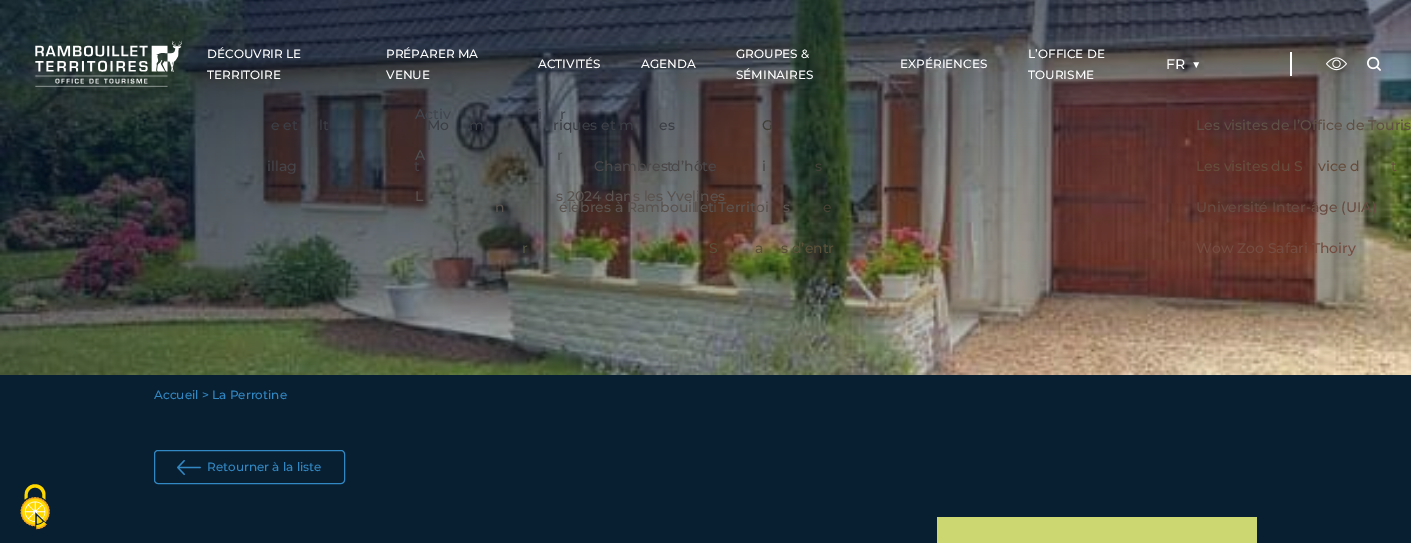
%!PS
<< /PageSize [1411 543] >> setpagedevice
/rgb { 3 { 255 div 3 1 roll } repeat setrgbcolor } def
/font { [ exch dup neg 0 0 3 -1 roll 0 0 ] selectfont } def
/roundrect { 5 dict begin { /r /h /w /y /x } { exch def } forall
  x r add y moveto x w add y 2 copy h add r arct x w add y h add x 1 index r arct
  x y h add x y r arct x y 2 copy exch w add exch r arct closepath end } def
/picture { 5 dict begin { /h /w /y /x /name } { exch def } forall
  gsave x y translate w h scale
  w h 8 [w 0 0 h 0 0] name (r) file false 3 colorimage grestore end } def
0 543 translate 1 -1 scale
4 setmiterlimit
8 30 49 rgb
0 0 1411 543 rectfill
(img/4.rgb) 0 0 1411 375 picture
(img/1.rgb) 35 40 147 47 picture
255 255 255 rgb
1290 52 2 24 rectfill
(img/2.rgb) 1326 57 21 14 picture
(img/3.rgb) 1367 56 14 15 picture
49 136 195 rgb
154.5 450.5 190 33 3.5 roundrect stroke
(img/5.rgb) 177 460 24 16 picture
204 215 114 rgb
937 517 320 26 rectfill
(img/6.rgb) 20 484 30 46 picture
/Montserrat-Medium 12 font
255 255 255 rgb
207 58 moveto (DÉCOUVRIR LE) show
207 79 moveto (TERRITOIRE) show
/Montserrat-Medium 14 font
60 63 70 rgb
[
  [(e et) 271 130]
  [(lt) 319 130]
  [(Mo) 427 130]
  [(m) 469 130]
  [(riques et m) 553 130]
  [(es) 659 130]
] { aload pop moveto show } forall
90 83 79 rgb
[
  [(n) 495 212]
  [(élèbres à Rambouillet Territoi) 559 212]
  [(s) 783 212]
] { aload pop moveto show } forall
83 84 64 rgb
522 253 moveto (r) show
68 68 73 rgb
267 171 moveto (illag) show
/Montserrat-Medium 12 font
255 255 255 rgb
386 58 moveto (PRÉPARER MA) show
386 79 moveto (VENUE) show
/Montserrat-Medium 14 font
69 64 67 rgb
414 171 moveto (t) show
76 72 73 rgb
762 171 moveto (i) show
87 76 69 rgb
713 212 moveto (i) show
76 72 73 rgb
594 171 moveto (Chambres d’hôte) show
667 171 moveto (t) show
87 76 69 rgb
694 212 moveto (l) show
/Montserrat-Medium 12 font
255 255 255 rgb
736 58 moveto (GROUPES &) show
736 79 moveto (SÉMINAIRES) show
/Montserrat-Medium 14 font
65 63 55 rgb
762 130 moveto (G) show
815 171 moveto (s) show
72 66 53 rgb
823 212 moveto (e) show
91 81 57 rgb
[
  [(S) 709 253]
  [(a) 755 253]
  [(s d’entr) 781 253]
] { aload pop moveto show } forall
/Montserrat-Medium 12 font
255 255 255 rgb
1028 58 moveto (L’OFFICE DE) show
1028 79 moveto (TOURISME) show
/Montserrat-Medium 14 font
96 80 69 rgb
1196 130 moveto (Les visites de l’Office de Touris) show
102 77 59 rgb
[
  [(Les visites du S) 1196 171]
  [(vice d) 1318 171]
  [(t) 1391 171]
] { aload pop moveto show } forall
104 76 66 rgb
1196 212 moveto (Université Inter-âge \(UIA\)) show
117 77 64 rgb
1196 253 moveto (Wow Zoo Safari Thoiry) show
/Montserrat-Medium 12 font
255 255 255 rgb
538 68 moveto (ACTIVITÉS) show
/Montserrat-Medium 14 font
65 70 79 rgb
[
  [(Activ) 415 119]
  [(i) 538 119]
  [(r) 560 119]
] { aload pop moveto show } forall
78 80 82 rgb
415 160 moveto (A) show
557 160 moveto (r) show
90 83 79 rgb
415 201 moveto (L) show
556 201 moveto (s 2024 dans les Yvelines) show
/Montserrat-Medium 12 font
255 255 255 rgb
900 68 moveto (EXPÉRIENCES) show
641 68 moveto (AGENDA) show
/Montserrat-Medium 14 font
1166 69 moveto (FR) show
1192 69 moveto (▼) show
/Montserrat-Medium 12 font
49 136 195 rgb
154 399 moveto (Accueil > La Perrotine) show
207 471 moveto (Retourner à la liste) show
showpage
